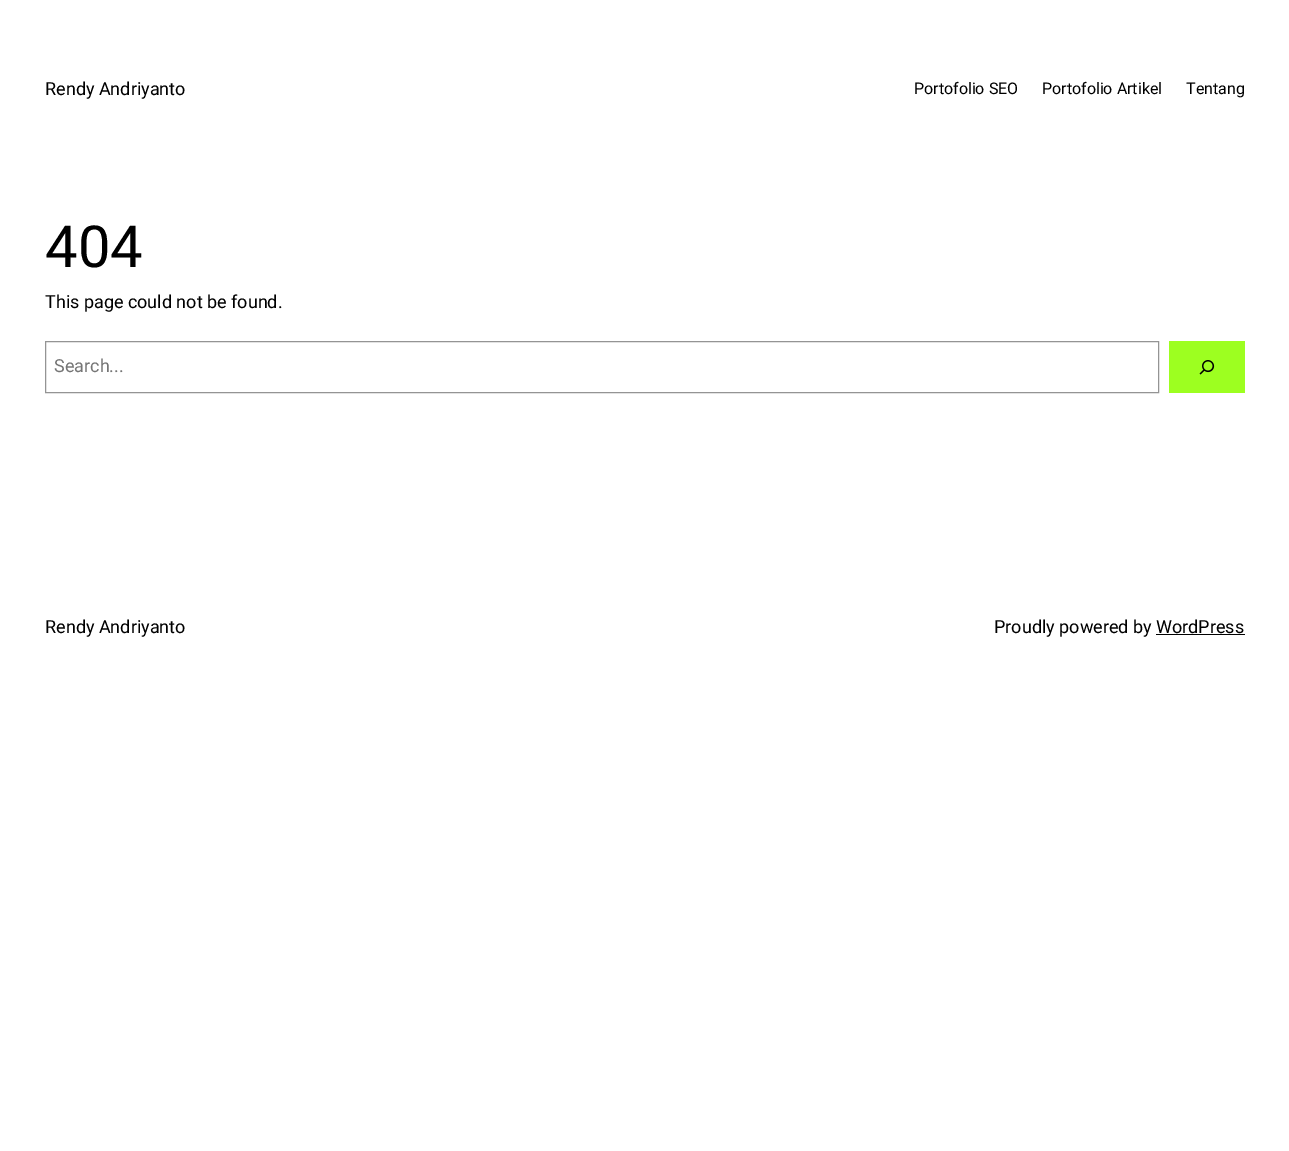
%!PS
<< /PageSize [1289 1151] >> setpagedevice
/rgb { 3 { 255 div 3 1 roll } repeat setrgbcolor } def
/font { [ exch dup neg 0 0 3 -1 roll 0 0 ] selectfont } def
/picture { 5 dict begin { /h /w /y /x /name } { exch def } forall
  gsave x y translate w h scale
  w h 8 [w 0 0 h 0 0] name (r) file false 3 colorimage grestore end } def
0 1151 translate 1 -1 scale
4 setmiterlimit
255 255 255 rgb
0 0 1289 1151 rectfill
148 148 148 rgb
45.5 341.5 1113 51 rectstroke
157 255 32 rgb
1169 341 76 52 rectfill
(img/1.rgb) 1199 360 16 15 picture
0 0 0 rgb
1156 634 89 1 rectfill
/Roboto-Regular 18 font
45 95 moveto (Rendy Andriyanto) show
/Roboto-Regular 16 font
[
  [(Portofolio SEO) 914 94]
  [(Portofolio Artikel) 1042 94]
  [(Tentang) 1186 94]
] { aload pop moveto show } forall
/Roboto-Regular 58 font
45 267 moveto (404) show
/Roboto-Regular 18 font
45 308 moveto (This page could not be found.) show
117 117 117 rgb
54 372 moveto (Search...) show
0 0 0 rgb
45 633 moveto (Rendy Andriyanto) show
994 633 moveto (Proudly powered by WordPress) show
showpage
